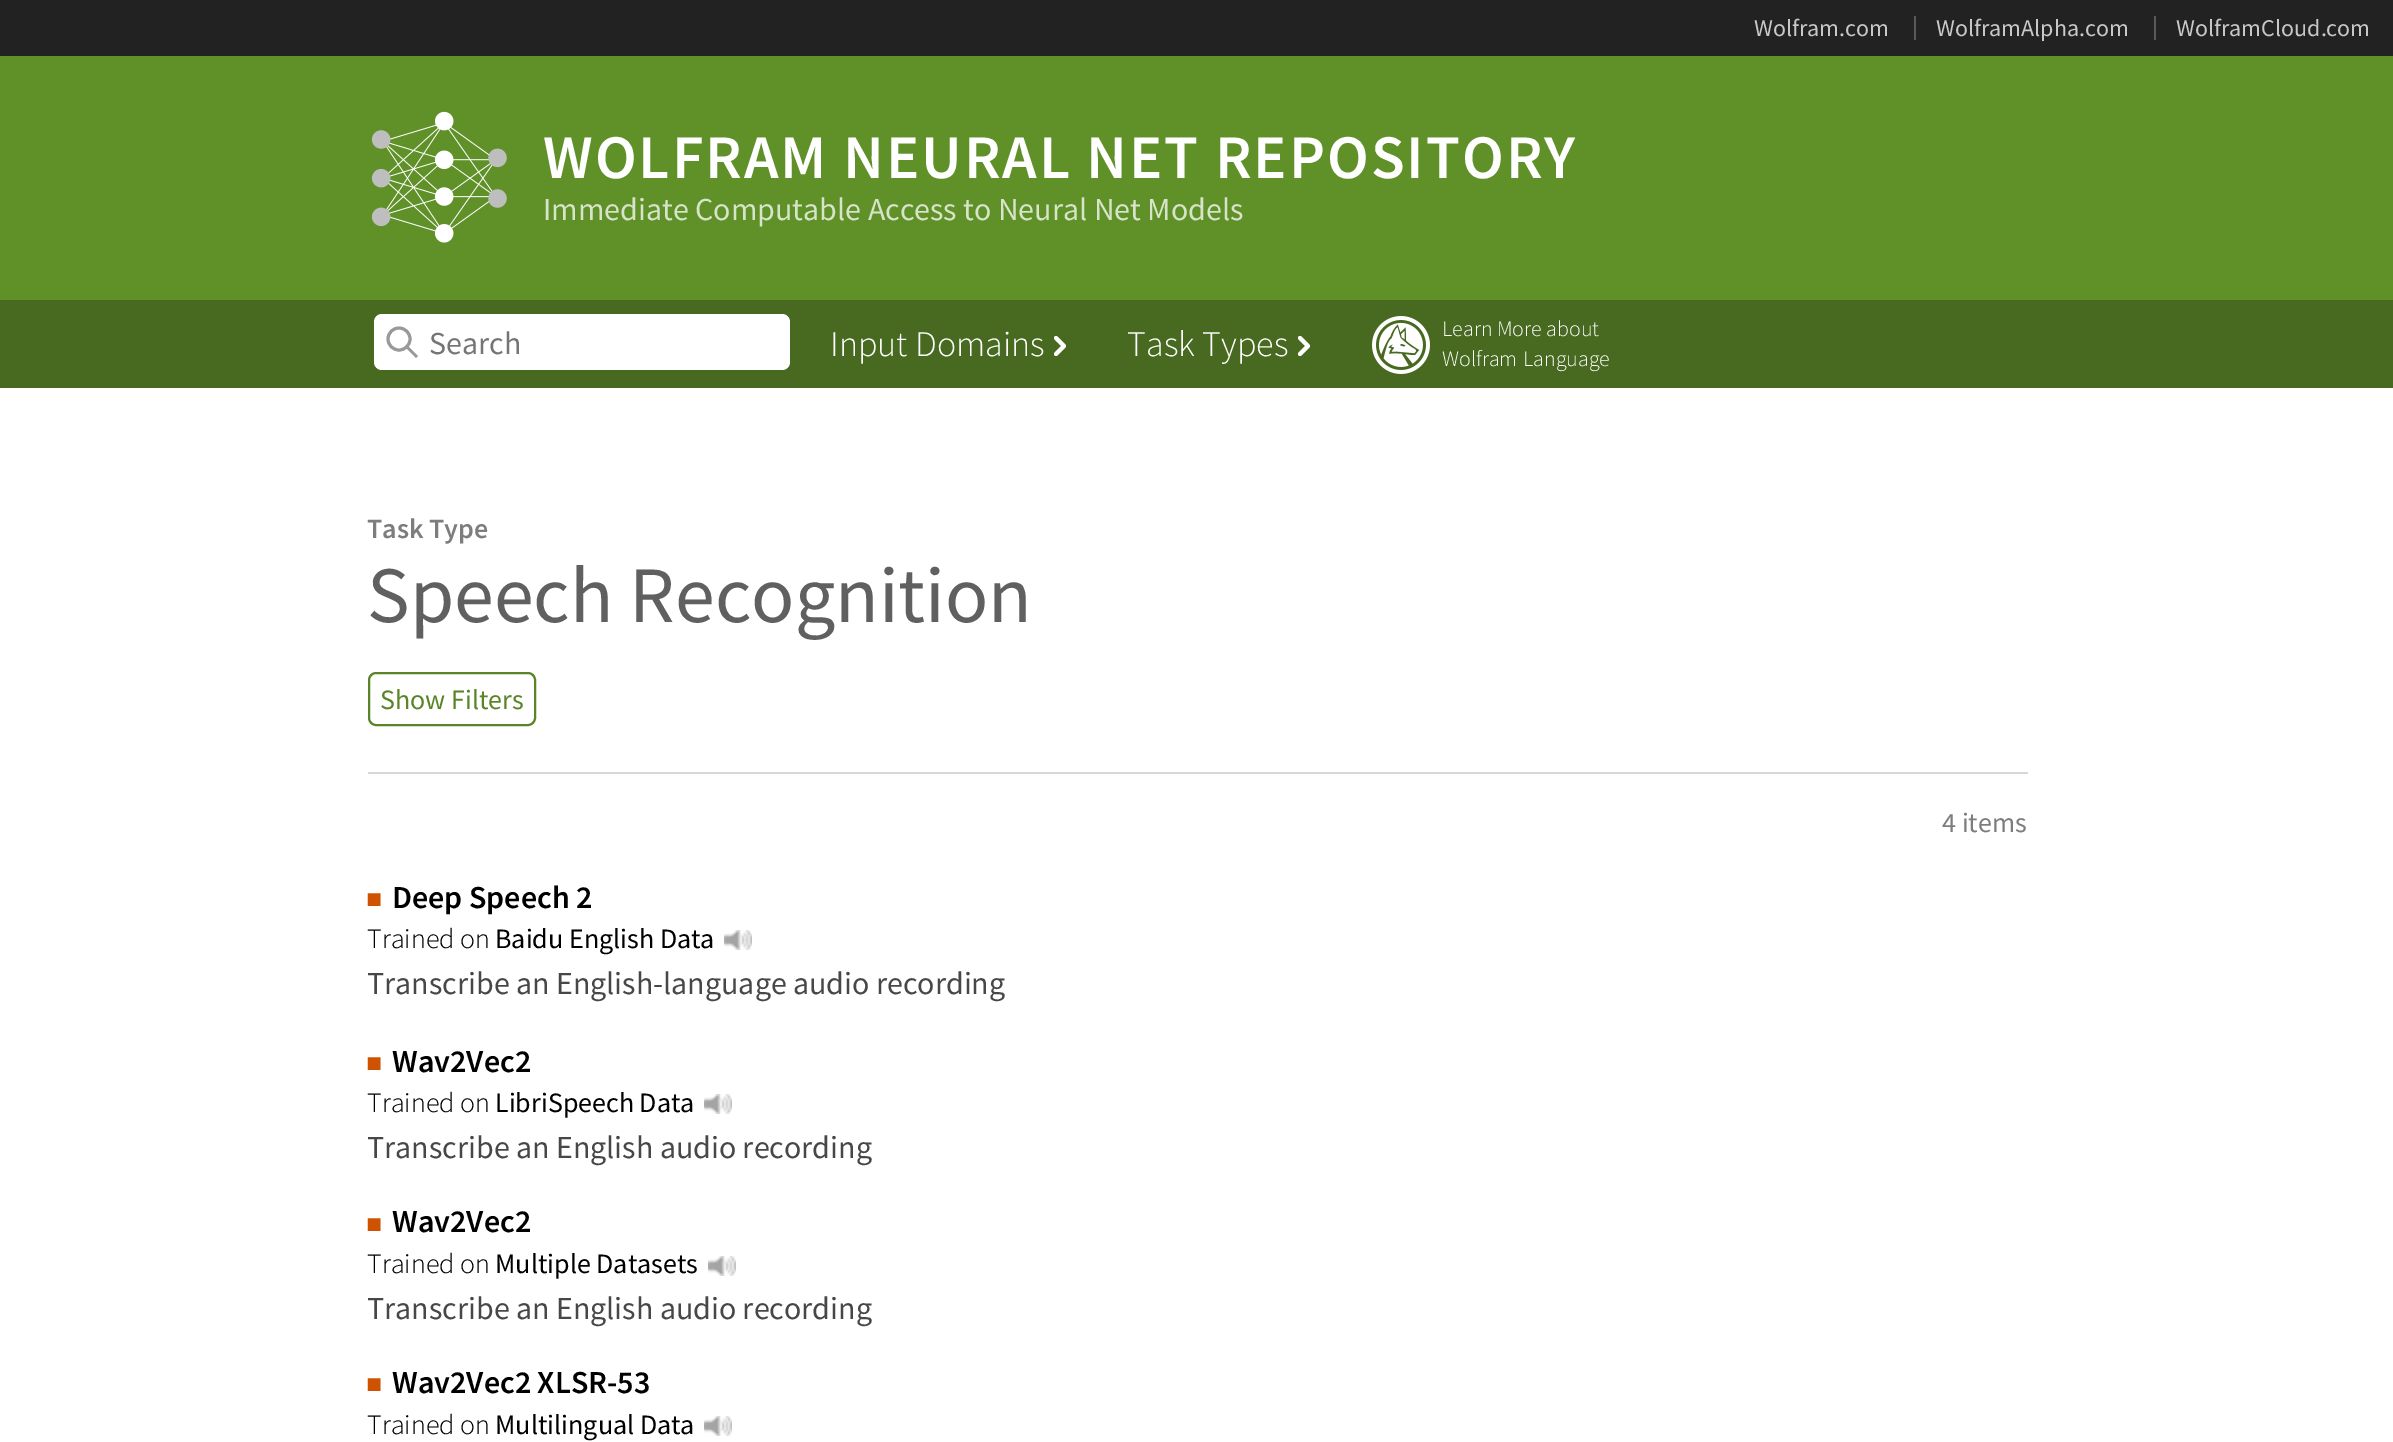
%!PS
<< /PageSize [2393 1442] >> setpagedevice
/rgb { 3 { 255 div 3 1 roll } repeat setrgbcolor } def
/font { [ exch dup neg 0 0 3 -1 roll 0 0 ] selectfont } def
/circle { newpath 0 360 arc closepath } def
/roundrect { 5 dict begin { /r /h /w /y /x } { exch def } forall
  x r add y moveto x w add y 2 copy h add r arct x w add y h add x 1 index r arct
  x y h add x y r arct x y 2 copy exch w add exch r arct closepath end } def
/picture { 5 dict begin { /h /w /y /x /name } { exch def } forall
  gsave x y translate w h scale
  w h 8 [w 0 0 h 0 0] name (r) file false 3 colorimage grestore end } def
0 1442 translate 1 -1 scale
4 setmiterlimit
255 255 255 rgb
0 0 2393 1442 rectfill
[
  [0 0 2393 56 34 34 34]
  [1914 16 2 24 89 89 89]
  [2154 16 2 24 89 89 89]
  [0 56 2393 244 96 145 41]
] { aload pop rgb rectfill } forall
(img/1.rgb) 371 111 136 132 picture
71 105 32 rgb
0 300 2393 88 rectfill
255 255 255 rgb
374 314 416 56 8 roundrect fill
153 153 153 rgb
3 setlinewidth
399 339 11 circle stroke
406 348 moveto 416 358 lineto 418 356 lineto 408 346 lineto closepath fill
255 255 255 rgb
4 setlinewidth
1 setlinecap
1 setlinejoin
1056 338 moveto 1064 346 lineto 1056 354 lineto stroke
1300 338 moveto 1308 346 lineto 1300 354 lineto stroke
(img/2.rgb) 1372 316 58 58 picture
89 133 39 rgb
2 setlinewidth
0 setlinecap
0 setlinejoin
369 673 166 52 7 roundrect stroke
215 215 215 rgb
368 772 1660 2 rectfill
(img/3.rgb) 724 930 28 20 picture
(img/3.rgb) 704 1094 28 20 picture
(img/3.rgb) 708 1256 28 20 picture
(img/3.rgb) 704 1416 28 20 picture
/SourceSansPro-Regular 24 font
200 200 200 rgb
[
  [(Wolfram.com) 1754 36]
  [(WolframAlpha.com) 1936 36]
  [(WolframCloud.com) 2176 36]
] { aload pop moveto show } forall
/SourceSansPro-SemiBold 62 font
255 255 255 rgb
543 178 moveto 2 0 (WOLFRAM NEURAL NET REPOSITORY) ashow
/SourceSansPro-Regular 32 font
215 228 202 rgb
543 220 moveto (Immediate Computable Access to Neural Net Models) show
117 117 117 rgb
429 354 moveto (Search) show
/SourceSansPro-Light 36 font
255 255 255 rgb
830 356 moveto (Input Domains) show
1127 356 moveto (Task Types) show
/SourceSansPro-Light 22 font
1442 336 moveto (Learn More about) show
1442 366 moveto 1 0 32 (Wolfram Language) widthshow
/SourceSansPro-SemiBold 28 font
125 125 125 rgb
367 538 moveto (Task Type) show
/SourceSansPro-Regular 80 font
96 96 96 rgb
367 622 moveto (Speech Recognition) show
/SourceSansPro-Regular 28 font
89 133 39 rgb
380 709 moveto (Show Filters) show
125 125 125 rgb
1942 832 moveto (4 items) show
/SourceSansPro-SemiBold 16 font
207 82 0 rgb
367 905 moveto (■) show
/SourceSansPro-SemiBold 32 font
0 0 0 rgb
392 908 moveto (Deep Speech 2) show
/SourceSansPro-Light 28 font
367 948 moveto (Trained on) show
/SourceSansPro-Regular 28 font
495 948 moveto (Baidu English Data) show
/SourceSansPro-Regular 32 font
71 71 71 rgb
367 994 moveto (Transcribe an English-language audio recording) show
/SourceSansPro-SemiBold 16 font
207 82 0 rgb
367 1069 moveto (■) show
/SourceSansPro-SemiBold 32 font
0 0 0 rgb
392 1072 moveto (Wav2Vec2) show
/SourceSansPro-Light 28 font
367 1112 moveto (Trained on) show
/SourceSansPro-Regular 28 font
495 1112 moveto (LibriSpeech Data) show
/SourceSansPro-Regular 32 font
71 71 71 rgb
367 1158 moveto (Transcribe an English audio recording) show
/SourceSansPro-SemiBold 16 font
207 82 0 rgb
367 1230 moveto (■) show
/SourceSansPro-SemiBold 32 font
0 0 0 rgb
392 1232 moveto (Wav2Vec2) show
/SourceSansPro-Light 28 font
367 1273 moveto (Trained on) show
/SourceSansPro-Regular 28 font
495 1273 moveto (Multiple Datasets) show
/SourceSansPro-Regular 32 font
71 71 71 rgb
367 1319 moveto (Transcribe an English audio recording) show
/SourceSansPro-SemiBold 16 font
207 82 0 rgb
367 1390 moveto (■) show
/SourceSansPro-SemiBold 32 font
0 0 0 rgb
392 1393 moveto (Wav2Vec2 XLSR-53) show
/SourceSansPro-Light 28 font
367 1434 moveto (Trained on) show
/SourceSansPro-Regular 28 font
495 1434 moveto (Multilingual Data) show
showpage
